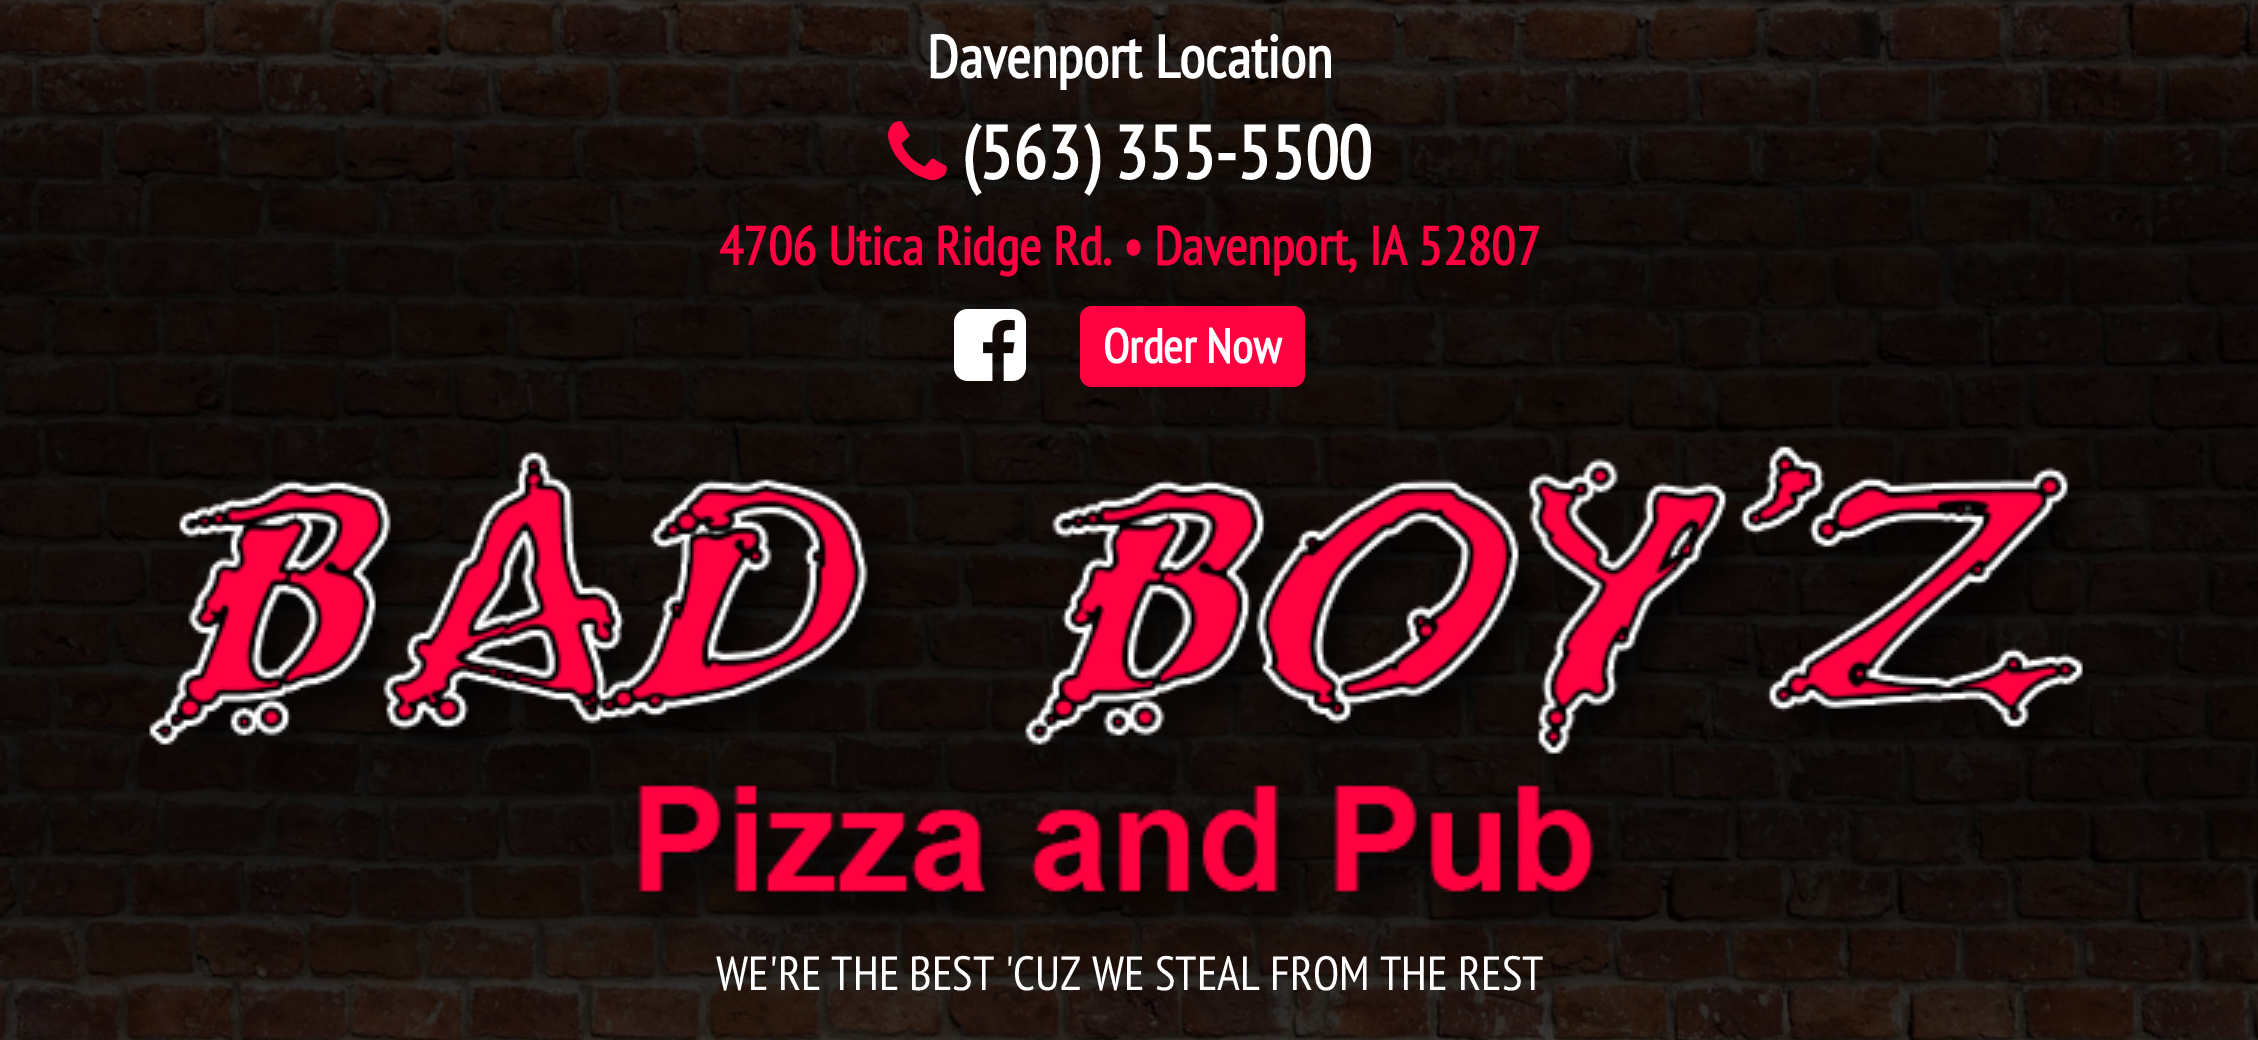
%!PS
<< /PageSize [2258 1040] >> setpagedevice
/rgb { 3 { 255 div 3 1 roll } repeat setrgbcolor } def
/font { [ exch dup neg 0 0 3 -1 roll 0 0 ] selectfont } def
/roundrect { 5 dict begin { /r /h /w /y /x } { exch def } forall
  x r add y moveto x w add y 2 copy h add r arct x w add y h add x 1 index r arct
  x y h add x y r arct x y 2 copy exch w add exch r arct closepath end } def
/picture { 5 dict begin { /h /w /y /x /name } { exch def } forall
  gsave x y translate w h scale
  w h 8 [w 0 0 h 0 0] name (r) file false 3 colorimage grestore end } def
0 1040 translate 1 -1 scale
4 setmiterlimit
255 255 255 rgb
0 0 2258 1040 rectfill
(img/1.rgb) 0 0 2258 1040 picture
(img/2.rgb) 888 121 59 59 picture
(img/3.rgb) 954 309 72 72 picture
255 0 64 rgb
1080 306 225 81 12 roundrect fill
(img/4.rgb) 149 446 1939 488 picture
/PTSansNarrow-Bold 60 font
255 255 255 rgb
927 78 moveto (Davenport Location) show
/PTSansNarrow-Bold 75 font
962 179 moveto (\(563\) 355-5500) show
/PTSansNarrow-Bold 54 font
255 0 64 rgb
719 265 moveto (4706 Utica Ridge Rd. • Davenport, IA 52807) show
/PTSansNarrow-Bold 48 font
255 255 255 rgb
1103 363 moveto (Order Now) show
/PTSansNarrow-Regular 48 font
716 990 moveto (WE'RE THE BEST 'CUZ WE STEAL FROM THE REST) show
showpage
